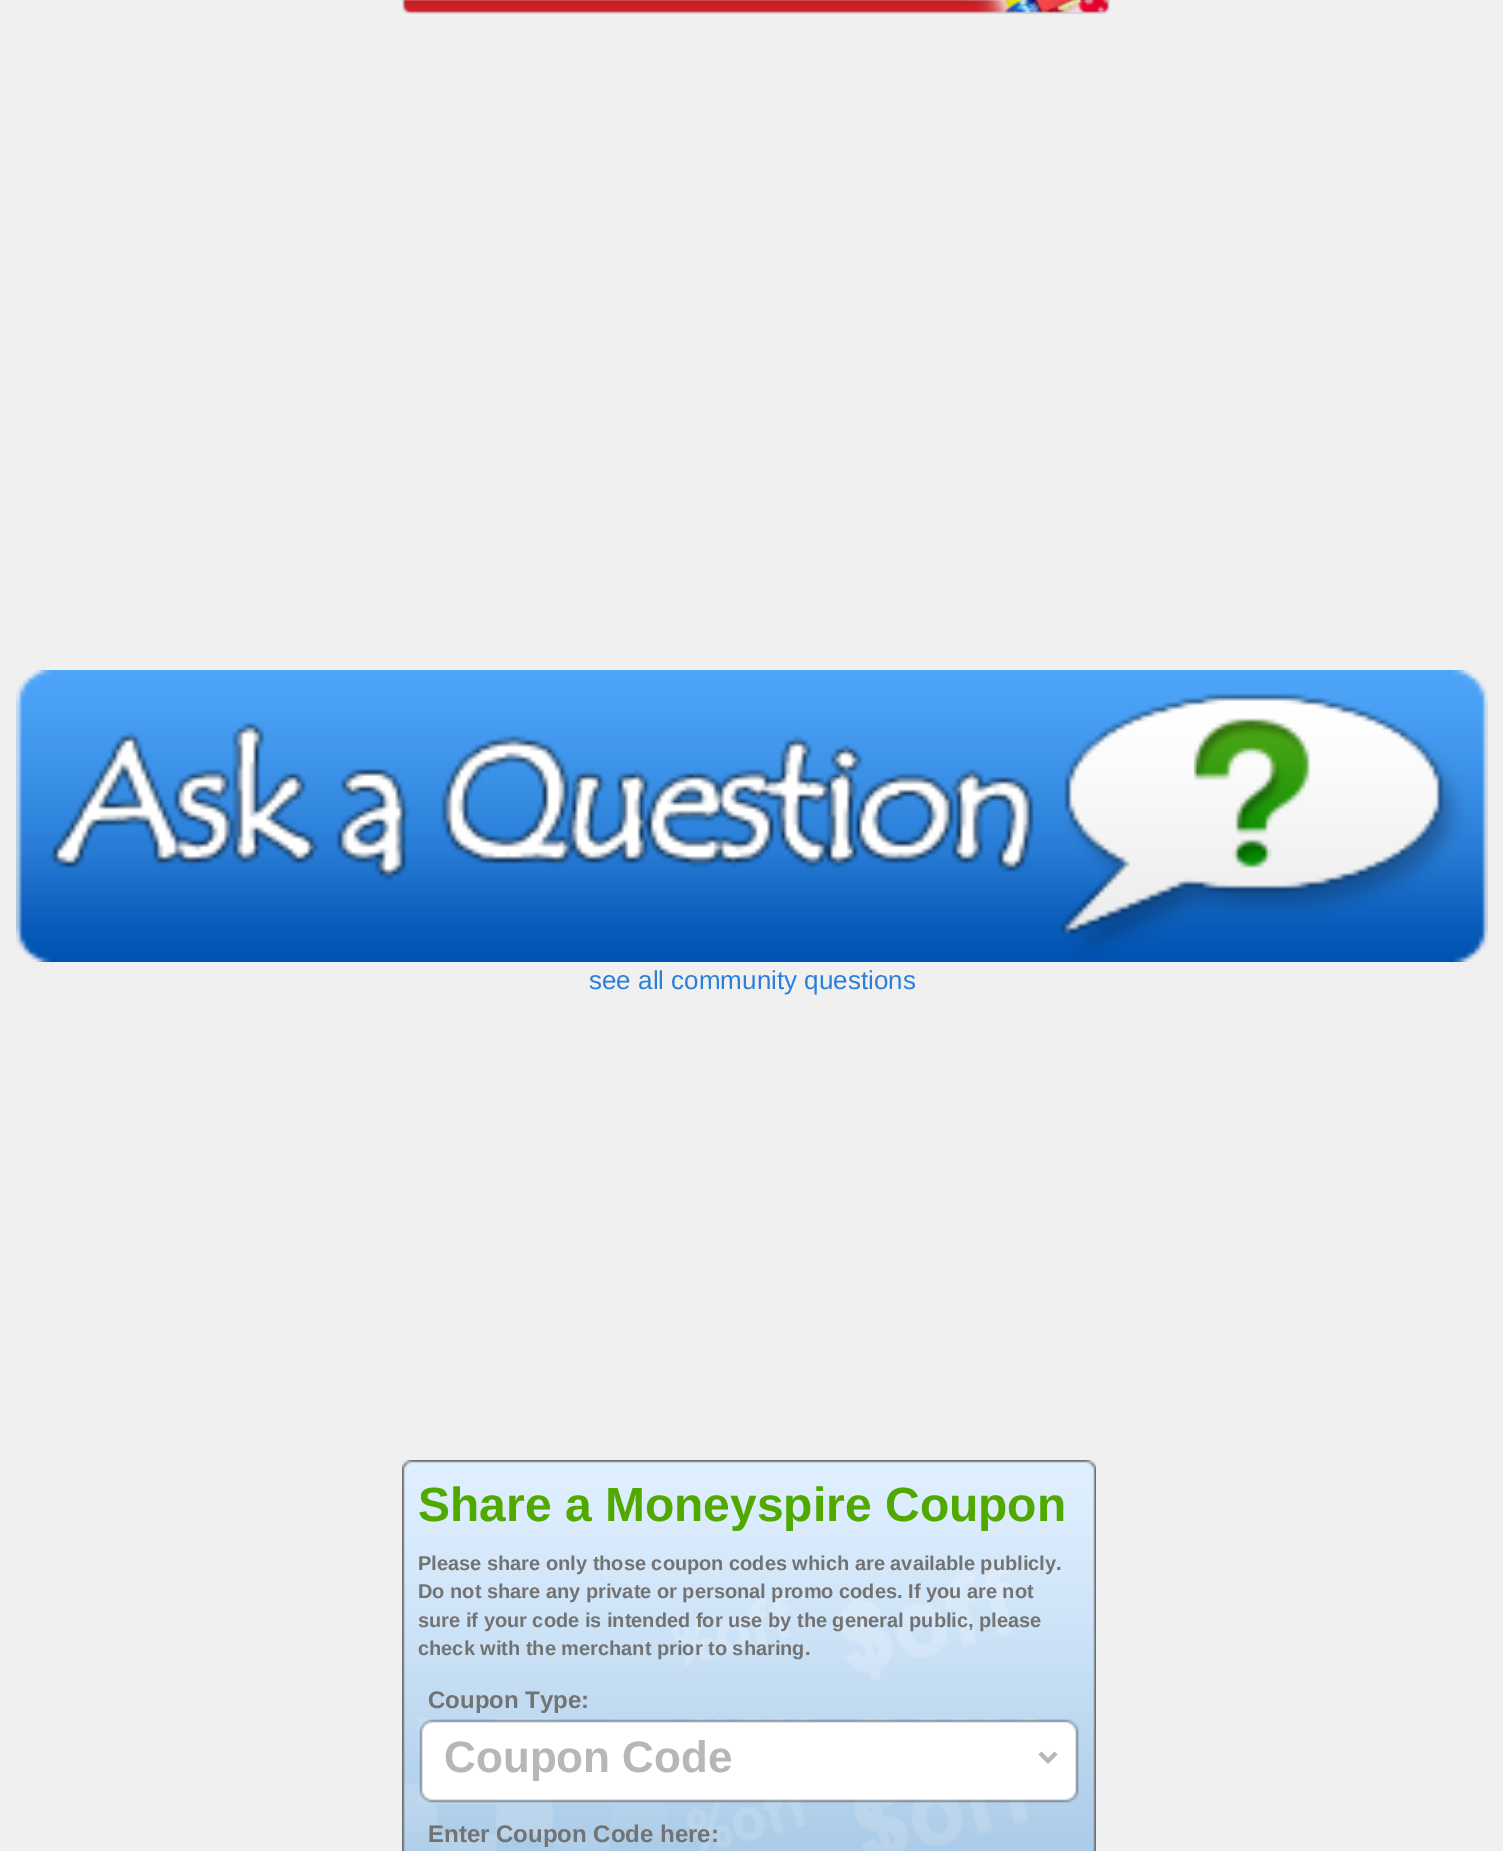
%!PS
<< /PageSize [1503 1851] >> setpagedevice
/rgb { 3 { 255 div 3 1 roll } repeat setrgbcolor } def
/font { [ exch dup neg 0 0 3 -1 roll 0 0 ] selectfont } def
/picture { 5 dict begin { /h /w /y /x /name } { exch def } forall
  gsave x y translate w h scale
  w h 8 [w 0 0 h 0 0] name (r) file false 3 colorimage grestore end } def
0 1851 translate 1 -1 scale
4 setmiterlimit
240 240 240 rgb
0 0 1503 1851 rectfill
(img/1.rgb) 402 0 708 14 picture
(img/2.rgb) 16 670 1472 292 picture
(img/3.rgb) 402 1460 694 391 picture
(img/4.rgb) 418 1718 661 86 picture
183 183 183 rgb
4 setlinewidth
1040 1753 moveto 1048 1761 lineto 1056 1753 lineto stroke
/LiberationSans-Regular 26 font
43 127 217 rgb
589 989 moveto (see all community questions) show
/LiberationSans-Bold 48 font
81 169 0 rgb
418 1521 moveto (Share a Moneyspire Coupon) show
/LiberationSans-Bold 20 font
115 115 115 rgb
[
  [(Please share only those coupon codes which are available publicly.) 418 1570]
  [(Do not share any private or personal promo codes. If you are not) 418 1598]
  [(sure if your code is intended for use by the general public, please) 418 1627]
  [(check with the merchant prior to sharing.) 418 1655]
] { aload pop moveto show } forall
/LiberationSans-Bold 24 font
428 1708 moveto (Coupon Type:) show
/LiberationSans-Bold 44 font
183 183 183 rgb
444 1772 moveto (Coupon Code) show
/LiberationSans-Bold 24 font
115 115 115 rgb
428 1842 moveto (Enter Coupon Code here:) show
showpage
